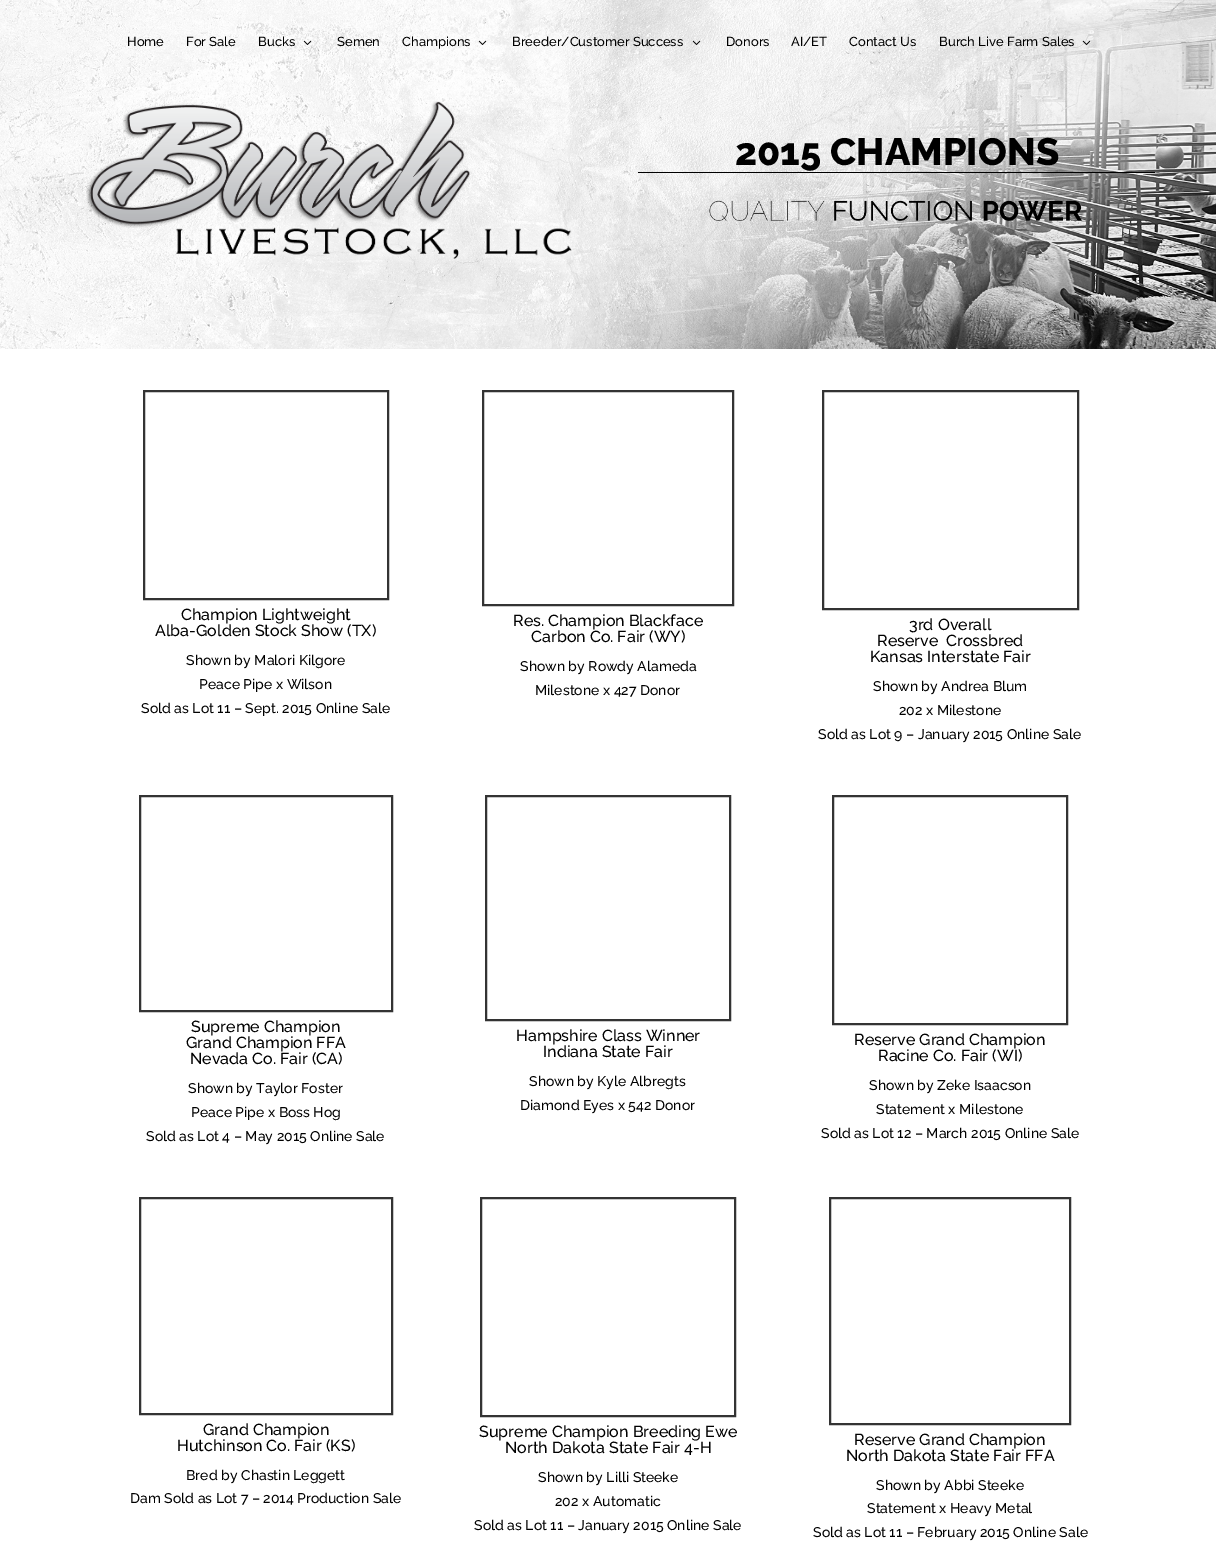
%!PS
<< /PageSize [1216 1555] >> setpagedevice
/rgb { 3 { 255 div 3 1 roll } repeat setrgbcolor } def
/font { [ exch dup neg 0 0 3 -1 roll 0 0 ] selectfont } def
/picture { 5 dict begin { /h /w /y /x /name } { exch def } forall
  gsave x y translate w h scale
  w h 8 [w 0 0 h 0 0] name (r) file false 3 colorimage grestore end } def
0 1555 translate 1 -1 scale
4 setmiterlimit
255 255 255 rgb
0 0 1216 1555 rectfill
(img/1.rgb) 0 0 1216 349 picture
(img/2.rgb) 303 40 9 5 picture
(img/3.rgb) 478 40 9 5 picture
(img/4.rgb) 692 40 9 5 picture
(img/5.rgb) 1082 40 9 5 picture
(img/6.rgb) 86 101 490 162 picture
0 0 0 rgb
638 172 517 1 rectfill
(img/7.rgb) 709 200 373 21 picture
51 51 51 rgb
2 setlinewidth
144 391 244 208 rectstroke
483 391 250 214 rectstroke
823 391 255 218 rectstroke
140 796 252 215 rectstroke
486 796 244 224 rectstroke
833 796 234 228 rectstroke
140 1198 252 216 rectstroke
481 1198 254 218 rectstroke
830 1198 240 226 rectstroke
/Raleway-Medium 13 font
0 0 0 rgb
[
  [(Home) 127 46]
  [(For Sale) 186 46]
  [(Bucks) 258 46]
  [(Semen) 337 46]
  [(Champions) 402 46]
  [(Breeder/Customer Success) 512 46]
  [(Donors) 726 46]
  [(AI/ET) 791 46]
  [(Contact Us) 849 46]
  [(Burch Live Farm Sales) 939 46]
] { aload pop moveto show } forall
/Raleway-ExtraBold 38 font
735 165 moveto (2015 CHAMPIONS) show
/Raleway-Medium 16 font
181 620 moveto (Champion Lightweight) show
155 636 moveto (Alba-Golden Stock Show \(TX\)) show
/Raleway-Medium 14 font
[
  [(Shown by Malori Kilgore) 186 665]
  [(Peace Pipe x Wilson) 199 689]
  [(Sold as Lot 11 – Sept. 2015 Online Sale) 141 713]
] { aload pop moveto show } forall
/Raleway-Medium 16 font
513 626 moveto (Res. Champion Blackface) show
531 642 moveto (Carbon Co. Fair \(WY\)) show
/Raleway-Medium 14 font
520 671 moveto (Shown by Rowdy Alameda) show
535 695 moveto (Milestone x 427 Donor) show
/Raleway-Medium 16 font
[
  [(3rd Overall) 909 630]
  [(Reserve  Crossbred) 877 646]
  [(Kansas Interstate Fair) 870 662]
] { aload pop moveto show } forall
/Raleway-Medium 14 font
[
  [(Shown by Andrea Blum) 873 691]
  [(202 x Milestone) 899 715]
  [(Sold as Lot 9 – January 2015 Online Sale) 818 739]
] { aload pop moveto show } forall
/Raleway-Medium 16 font
[
  [(Supreme Champion) 191 1032]
  [(Grand Champion FFA) 186 1048]
  [(Nevada Co. Fair \(CA\)) 190 1064]
] { aload pop moveto show } forall
/Raleway-Medium 14 font
[
  [(Shown by Taylor Foster) 188 1093]
  [(Peace Pipe x Boss Hog) 191 1117]
  [(Sold as Lot 4 – May 2015 Online Sale) 146 1141]
] { aload pop moveto show } forall
/Raleway-Medium 16 font
516 1041 moveto (Hampshire Class Winner) show
543 1057 moveto (Indiana State Fair) show
/Raleway-Medium 14 font
529 1086 moveto (Shown by Kyle Albregts) show
520 1110 moveto (Diamond Eyes x 542 Donor) show
/Raleway-Medium 16 font
854 1045 moveto (Reserve Grand Champion) show
878 1061 moveto (Racine Co. Fair \(WI\)) show
/Raleway-Medium 14 font
[
  [(Shown by Zeke Isaacson) 869 1090]
  [(Statement x Milestone) 876 1114]
  [(Sold as Lot 12 – March 2015 Online Sale) 821 1138]
] { aload pop moveto show } forall
/Raleway-Medium 16 font
203 1435 moveto (Grand Champion) show
177 1451 moveto (Hutchinson Co. Fair \(KS\)) show
/Raleway-Medium 14 font
186 1480 moveto (Bred by Chastin Leggett) show
130 1503 moveto (Dam Sold as Lot 7 – 2014 Production Sale) show
/Raleway-Medium 16 font
479 1437 moveto (Supreme Champion Breeding Ewe) show
505 1453 moveto (North Dakota State Fair 4-H) show
/Raleway-Medium 14 font
[
  [(Shown by Lilli Steeke) 538 1482]
  [(202 x Automatic) 555 1506]
  [(Sold as Lot 11 – January 2015 Online Sale) 474 1530]
] { aload pop moveto show } forall
/Raleway-Medium 16 font
854 1445 moveto (Reserve Grand Champion) show
846 1461 moveto (North Dakota State Fair FFA) show
/Raleway-Medium 14 font
[
  [(Shown by Abbi Steeke) 876 1490]
  [(Statement x Heavy Metal) 867 1513]
  [(Sold as Lot 11 – February 2015 Online Sale) 813 1537]
] { aload pop moveto show } forall
showpage
